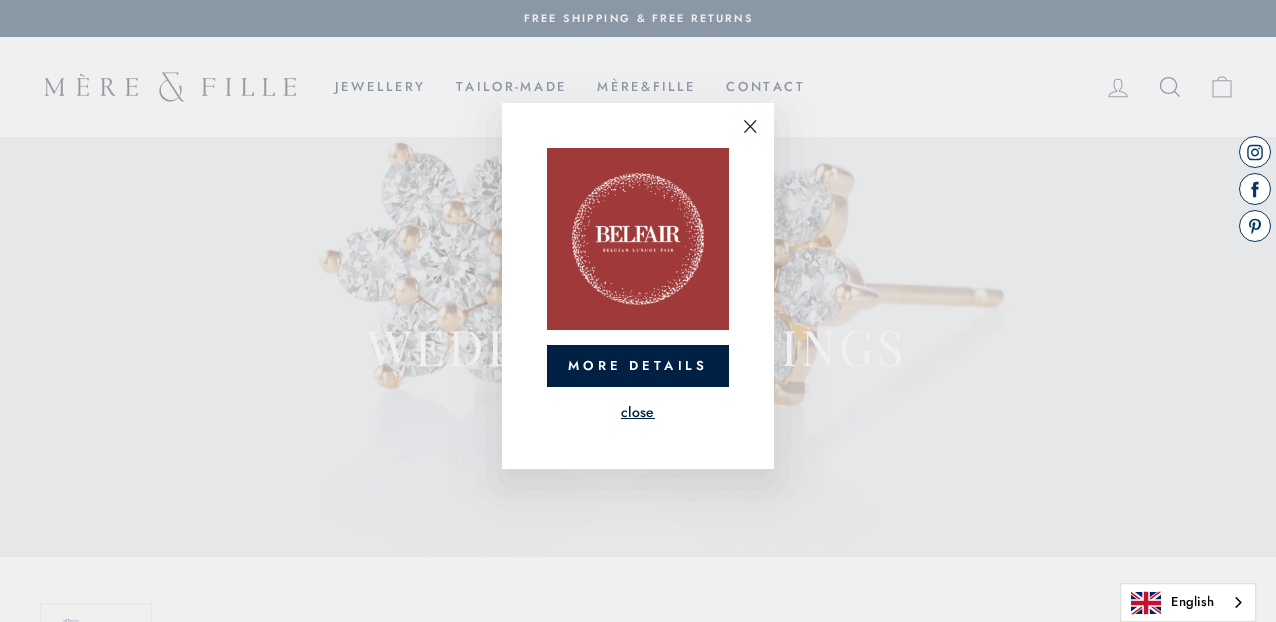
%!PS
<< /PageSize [1276 622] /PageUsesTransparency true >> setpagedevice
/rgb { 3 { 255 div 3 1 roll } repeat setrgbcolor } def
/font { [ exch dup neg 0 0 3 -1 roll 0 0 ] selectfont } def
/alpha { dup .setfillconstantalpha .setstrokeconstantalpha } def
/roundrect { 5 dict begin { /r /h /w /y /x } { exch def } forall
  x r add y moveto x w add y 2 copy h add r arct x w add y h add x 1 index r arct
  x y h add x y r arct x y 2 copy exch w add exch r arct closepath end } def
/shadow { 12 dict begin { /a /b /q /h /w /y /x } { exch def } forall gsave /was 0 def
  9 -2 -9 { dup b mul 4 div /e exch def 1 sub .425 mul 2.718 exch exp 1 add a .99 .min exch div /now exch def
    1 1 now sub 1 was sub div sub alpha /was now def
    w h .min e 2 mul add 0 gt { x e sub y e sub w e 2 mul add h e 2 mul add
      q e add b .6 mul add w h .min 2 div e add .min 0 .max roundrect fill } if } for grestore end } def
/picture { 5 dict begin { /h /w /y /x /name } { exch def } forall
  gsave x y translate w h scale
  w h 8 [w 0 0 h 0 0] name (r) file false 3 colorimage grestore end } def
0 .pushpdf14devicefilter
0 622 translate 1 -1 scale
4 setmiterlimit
240 240 240 rgb
0 0 1276 622 rectfill
138 151 165 rgb
0 0 1276 37 rectfill
(img/1.rgb) 44 72 252 30 picture
(img/2.rgb) 1108 78 20 20 picture
0.9 setlinewidth
1176.5 85.5 moveto 1176.5 96 1160.5 96 1160.5 85.5 curveto 1160.5 75 1176.5 75 1176.5 85.5 curveto closepath 1179.5 96.5 moveto 1174.5 91.5 lineto stroke
(img/3.rgb) 1212 76 20 22 picture
(img/4.rgb) 0 137 1276 420 picture
231 231 228 rgb
1 setlinewidth
40.5 603.5 111 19 rectstroke
(img/5.rgb) 62 619 17 3 picture
(img/6.rgb) 1239 136 32 106 picture
0 0 0 rgb
502 118 272 366 0 22.5 0.1 shadow
255 255 255 rgb
1120.5 583.5 moveto 1255.5 583.5 lineto 1255.5 621.5 lineto 1120.5 621.5 lineto closepath gsave fill grestore
224 224 224 rgb
stroke
(img/8.rgb) 1131 591 30 24 picture
(img/9.rgb) 1235 597 7 11 picture
/Jost-SemiBold 10.75 font
240 240 240 rgb
524 22 moveto 2.15 0 (FREE SHIPPING & FREE RETURNS) ashow
/Jost-Medium 13 font
138 151 165 rgb
335 91 moveto 2.6 0 (JEWELLERY) ashow
456 91 moveto 2.6 0 (TAILOR-MADE) ashow
597 91 moveto 2.6 0 (MÈRE&FILLE) ashow
726 91 moveto 2.6 0 (CONTACT) ashow
/PlayfairDisplay-Regular 49 font
240 240 240 rgb
367 366 moveto 3.5 0 (WEDD) ashow
781 366 moveto 3.5 0 (INGS) ashow
255 255 255 rgb
502 103 272 366 rectfill
0 32 68 rgb
0.9 setlinewidth
744.5 120.5 moveto 756 132.5 lineto 756 120.5 moveto 744.5 132.5 lineto stroke
(img/7.rgb) 547 148 182 182 picture
547 345 182 42 rectfill
/Jost-SemiBold 13 font
255 255 255 rgb
568 370 moveto 3.9 0 (MORE DETAILS) ashow
/Jost-Medium 14 font
0 32 68 rgb
621 417 moveto 0.25 0 (close) ashow
621 418 34 1 rectfill
/Jost-Medium 13 font
0 0 0 rgb
1171 606 moveto 0.25 0 (English) ashow
.poppdf14devicefilter showpage
